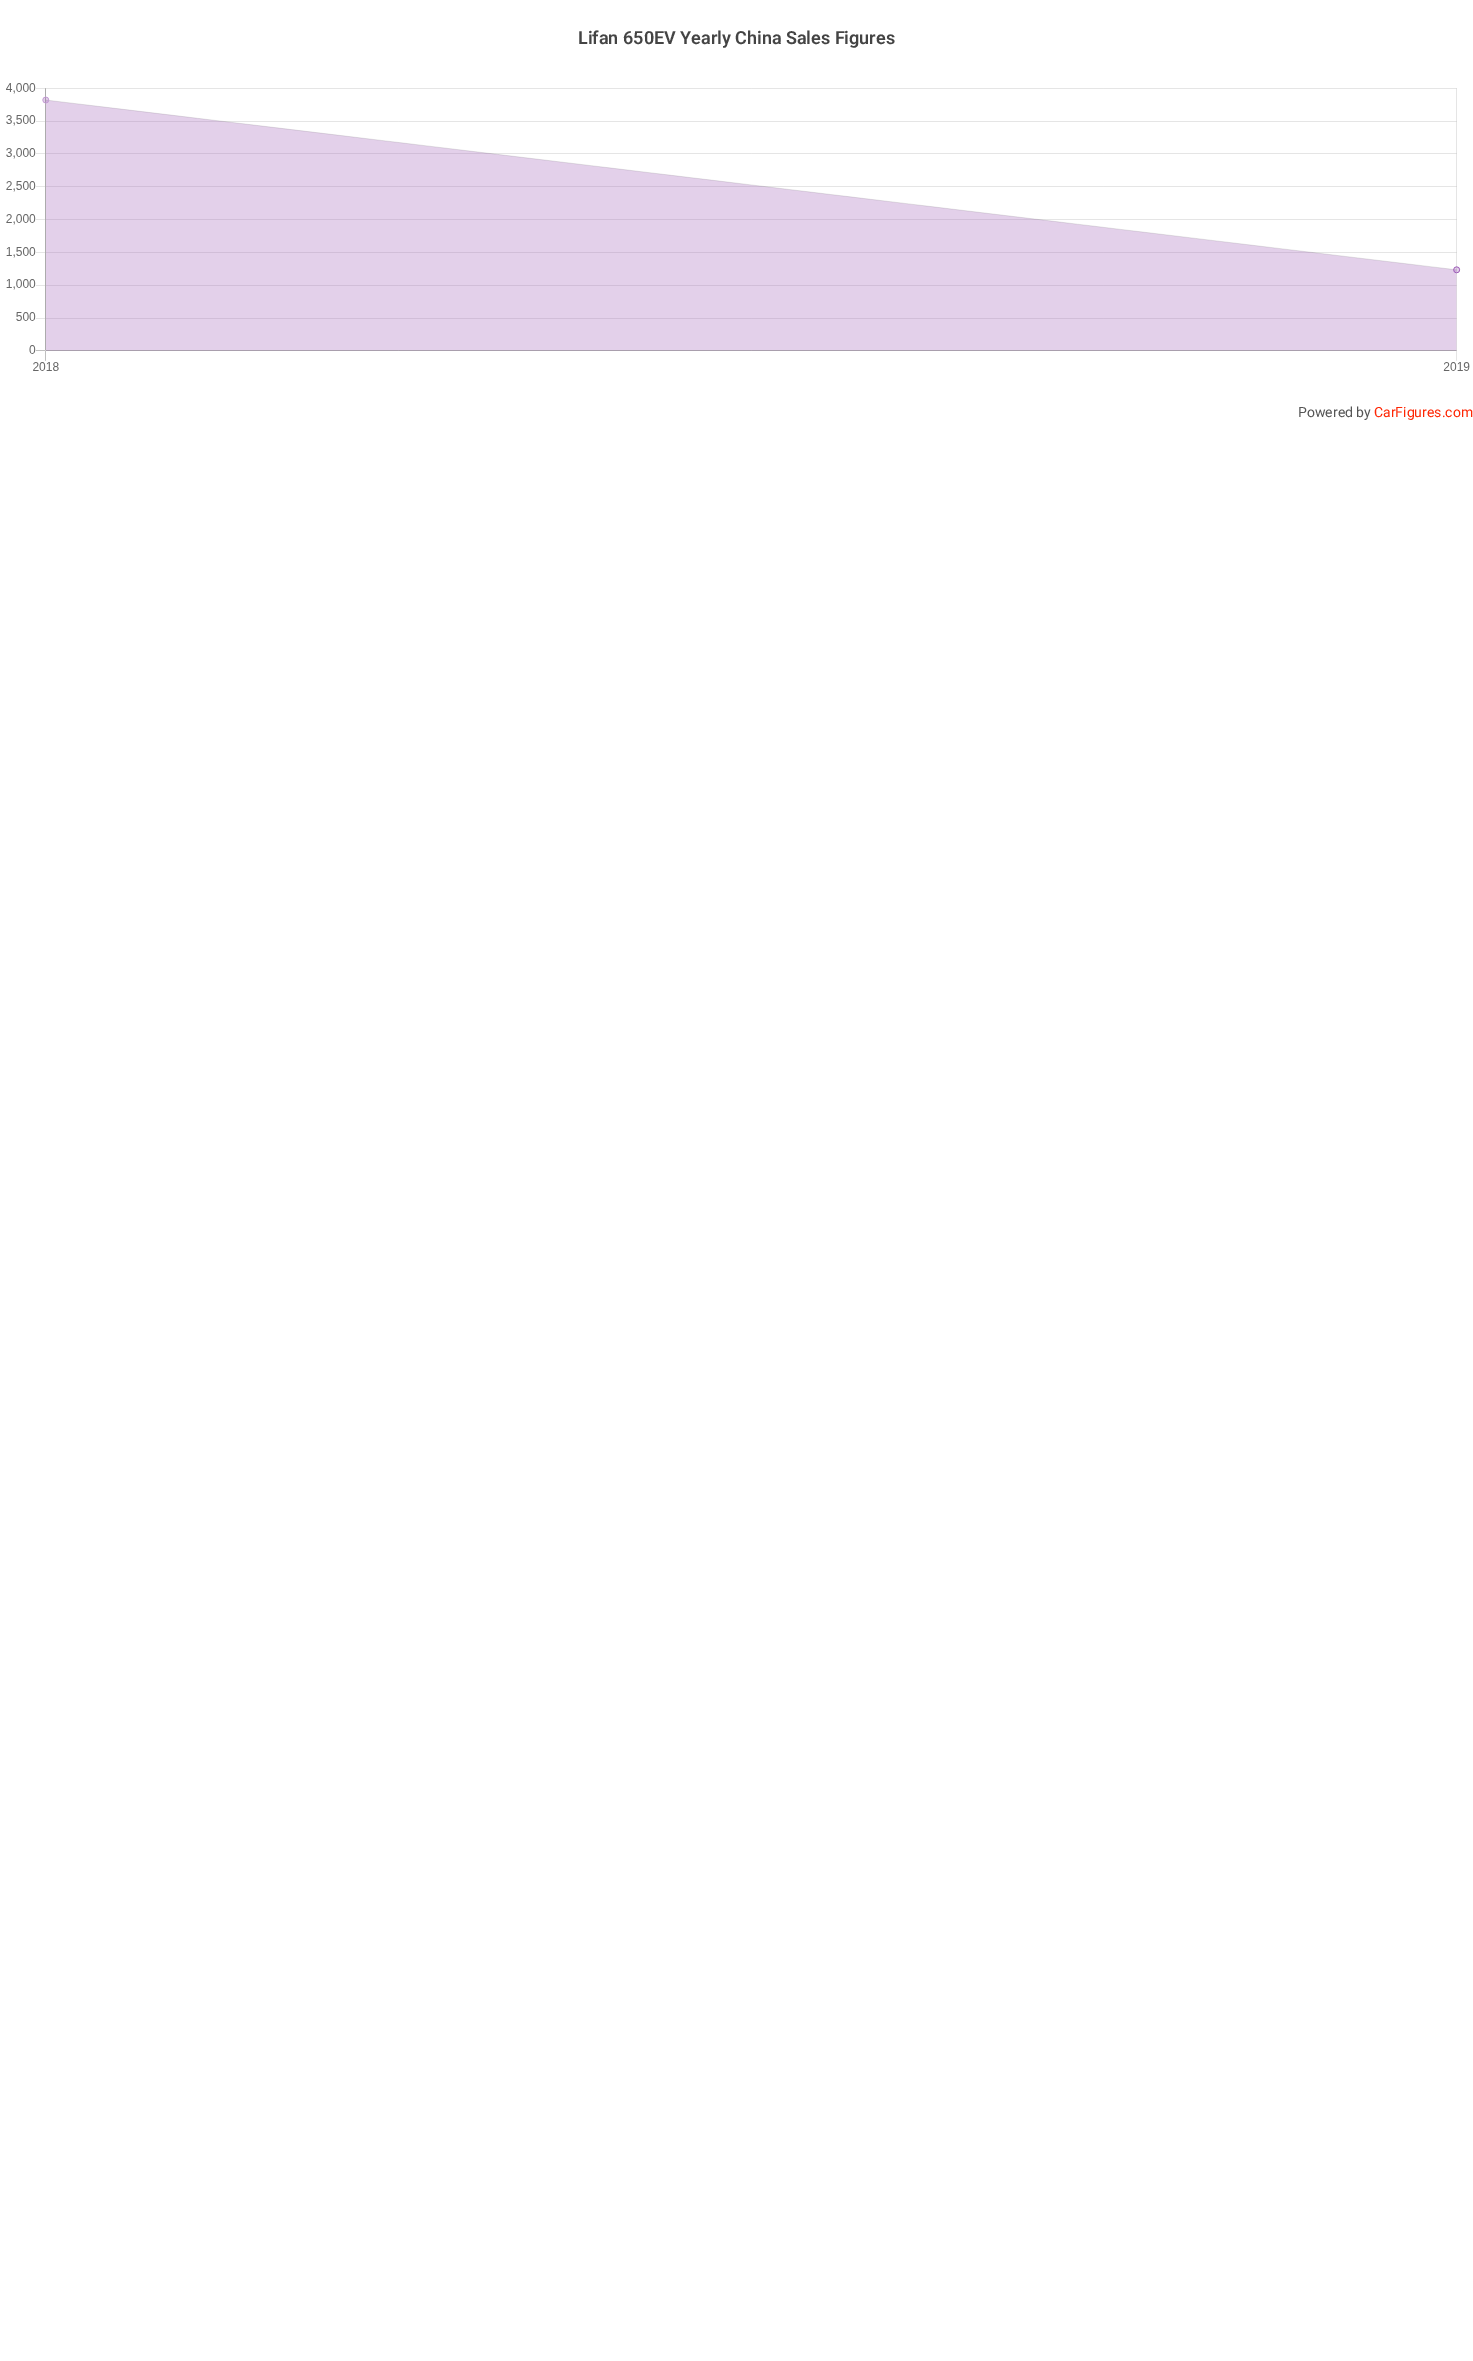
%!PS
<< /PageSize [1473 2361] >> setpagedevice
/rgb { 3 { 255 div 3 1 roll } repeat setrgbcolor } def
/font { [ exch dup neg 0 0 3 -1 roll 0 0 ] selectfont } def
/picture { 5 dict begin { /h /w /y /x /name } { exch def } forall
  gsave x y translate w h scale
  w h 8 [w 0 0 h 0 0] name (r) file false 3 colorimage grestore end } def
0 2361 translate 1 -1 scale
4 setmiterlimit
255 255 255 rgb
0 0 1473 2361 rectfill
(img/1.rgb) 6 83 1464 288 picture
/Roboto-SemiBold 18 font
68 68 68 rgb
578 44 moveto (Lifan 650EV Yearly China Sales Figures) show
/Roboto-Regular 14 font
85 85 85 rgb
1298 417 moveto (Powered by) show
254 38 4 rgb
1374 417 moveto (CarFigures.com) show
showpage
